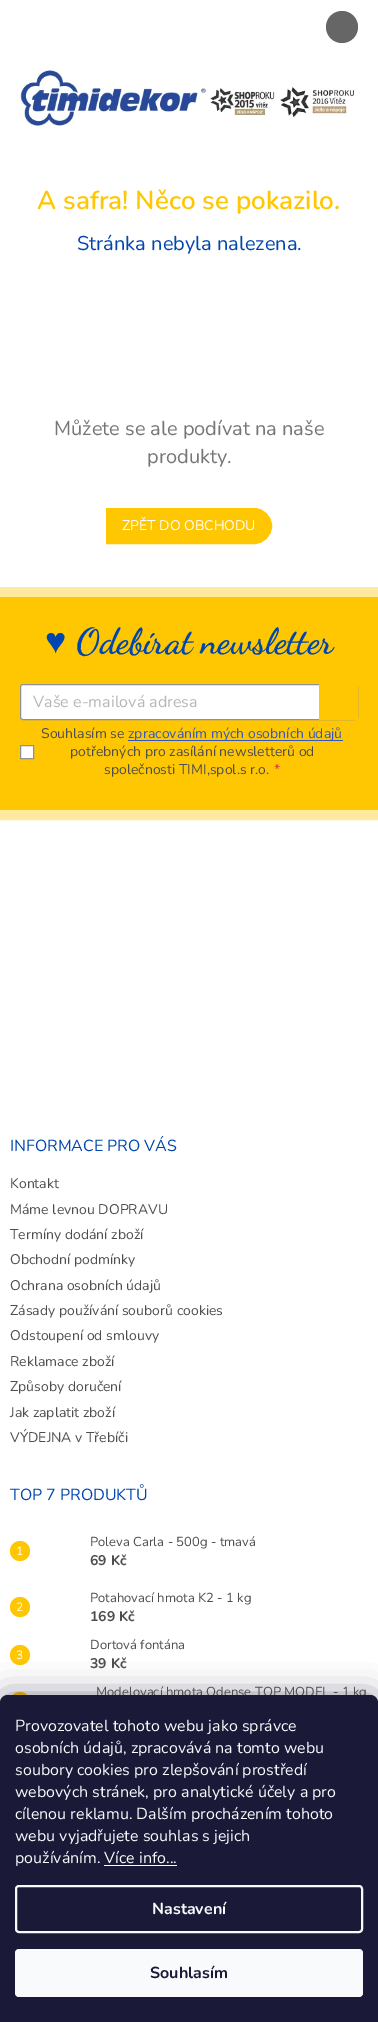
%!PS
<< /PageSize [378 2022] /PageUsesTransparency true >> setpagedevice
/rgb { 3 { 255 div 3 1 roll } repeat setrgbcolor } def
/font { [ exch dup neg 0 0 3 -1 roll 0 0 ] selectfont } def
/alpha { dup .setfillconstantalpha .setstrokeconstantalpha } def
/circle { newpath 0 360 arc closepath } def
/roundrect { 5 dict begin { /r /h /w /y /x } { exch def } forall
  x r add y moveto x w add y 2 copy h add r arct x w add y h add x 1 index r arct
  x y h add x y r arct x y 2 copy exch w add exch r arct closepath end } def
/shadow { 12 dict begin { /a /b /q /h /w /y /x } { exch def } forall gsave /was 0 def
  9 -2 -9 { dup b mul 4 div /e exch def 1 sub .425 mul 2.718 exch exp 1 add a .99 .min exch div /now exch def
    1 1 now sub 1 was sub div sub alpha /was now def
    w h .min e 2 mul add 0 gt { x e sub y e sub w e 2 mul add h e 2 mul add
      q e add b .6 mul add w h .min 2 div e add .min 0 .max roundrect fill } if } for grestore end } def
/picture { 5 dict begin { /h /w /y /x /name } { exch def } forall
  gsave x y translate w h scale
  w h 8 [w 0 0 h 0 0] name (r) file false 3 colorimage grestore end } def
0 .pushpdf14devicefilter
0 2022 translate 1 -1 scale
4 setmiterlimit
255 255 255 rgb
0 0 378 2022 rectfill
102 102 102 rgb
342 27 16 circle fill
(img/1.rgb) 20 69 334 57 picture
255 198 2 rgb
106.5 508.5 moveto 254 508.5 lineto 263.5 508.5 271.5 516.5 271.5 526 curveto 271.5 535.5 263.5 543.5 254 543.5 curveto 106.5 543.5 lineto closepath gsave fill grestore
stroke
255 233 159 rgb
10 setlinewidth
-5 592 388 223 rectstroke
255 198 2 rgb
0 597 378 213 rectfill
255 255 255 rgb
20.5 684.5 337 35 2.5 roundrect gsave fill grestore
145 145 145 rgb
1 setlinewidth
stroke
255 198 2 rgb
319 684 39 36 rectfill
48 87 194 rgb
128 740 215 1 rectfill
255 255 255 rgb
20.5 745.5 moveto 33.5 745.5 lineto 33.5 758.5 lineto 20.5 758.5 lineto closepath gsave fill grestore
145 145 145 rgb
stroke
255 198 2 rgb
20 1551 10 circle fill
20 1607 10 circle fill
20 1655 10 circle fill
20 1702 10 circle fill
27 25 57 rgb
0 1695 378 327 8 15 0.5 shadow
/Nunito-SemiBold 26 font
255 198 2 rgb
37 209 moveto (A safra! Něco se pokazilo.) show
/Nunito-Regular 20 font
0 70 174 rgb
77 250 moveto (Stránka nebyla nalezena.) show
118 118 118 rgb
54 435 moveto (Můžete se ale podívat na naše) show
147 463 moveto (produkty.) show
/Nunito-Regular 14 font
255 255 255 rgb
122 530 moveto (ZPĚT DO OBCHODU) show
/LiberationSerif-Bold 36 font
0 70 174 rgb
45 653 moveto (♥) show
/DancingScript-Bold 36 font
76 653 moveto (Odebírat newsletter) show
/Nunito-Regular 16.1 font
182 182 182 rgb
33 707 moveto (Vaše e-mailová adresa) show
/Nunito-Regular 14 font
77 77 77 rgb
41 738 moveto (Souhlasím se) show
48 87 194 rgb
128 738 moveto (zpracováním mých osobních údajů) show
77 77 77 rgb
70 756 moveto (potřebných pro zasílání newsletterů od) show
104 774 moveto (společnosti TIMI,spol.s r.o.) show
211 58 54 rgb
274 774 moveto (*) show
/Nunito-Regular 16 font
0 70 174 rgb
10 1151 moveto (INFORMACE PRO VÁS) show
/Nunito-Regular 14 font
77 77 77 rgb
[
  [(Kontakt) 10 1188]
  [(Máme levnou DOPRAVU) 10 1214]
  [(Termíny dodání zboží) 10 1239]
  [(Obchodní podmínky) 10 1264]
  [(Ochrana osobních údajů) 10 1290]
  [(Zásady používání souborů cookies) 10 1315]
  [(Odstoupení od smlouvy) 10 1340]
  [(Reklamace zboží) 10 1366]
  [(Způsoby doručení) 10 1391]
  [(Jak zaplatit zboží) 10 1417]
  [(VÝDEJNA v Třebíči) 10 1442]
] { aload pop moveto show } forall
/Nunito-Regular 16 font
0 70 174 rgb
10 1500 moveto (TOP 7 PRODUKTŮ) show
/Nunito-Regular 12 font
255 255 255 rgb
16 1555 moveto (1) show
/Nunito-Regular 13 font
77 77 77 rgb
90 1546 moveto (Poleva Carla - 500g - tmavá) show
/Nunito-Bold 14 font
90 1565 moveto (69 Kč) show
/Nunito-Regular 12 font
255 255 255 rgb
16 1611 moveto (2) show
/Nunito-Regular 13 font
77 77 77 rgb
90 1602 moveto (Potahovací hmota K2 - 1 kg) show
/Nunito-Bold 14 font
90 1621 moveto (169 Kč) show
/Nunito-Regular 12 font
255 255 255 rgb
16 1659 moveto (3) show
/Nunito-Regular 13 font
77 77 77 rgb
90 1649 moveto (Dortová fontána) show
/Nunito-Bold 14 font
90 1668 moveto (39 Kč) show
/Nunito-Regular 13 font
96 1696 moveto (Modelovací hmota Odense TOP MODEL - 1 kg) show
26 25 55 rgb
8 1695 moveto 370 1695 lineto 374.5 1695 378 1698.5 378 1703 curveto 378 2022 lineto 0 2022 lineto 0 1703 lineto 0 1698.5 3.5 1695 8 1695 curveto closepath fill
/Nunito-Regular 16 font
248 250 251 rgb
[
  [(Provozovatel tohoto webu jako správce) 15 1731]
  [(osobních údajů, zpracovává na tomto webu) 15 1753]
  [(soubory cookies pro zlepšování prostředí) 15 1775]
  [(webových stránek, pro analytické účely a pro) 15 1797]
  [(cílenou reklamu. Dalším procházením tohoto) 15 1819]
  [(webu vyjadřujete souhlas s jejich) 15 1841]
  [(používáním. Více info...) 15 1863]
] { aload pop moveto show } forall
104 1865 73 1 rectfill
2 setlinewidth
16 1886 346 46 3 roundrect stroke
/Nunito-Bold 16 font
152 1914 moveto (Nastavení) show
15 1949 348 48 4 roundrect fill
26 25 55 rgb
150 1978 moveto (Souhlasím) show
.poppdf14devicefilter showpage
